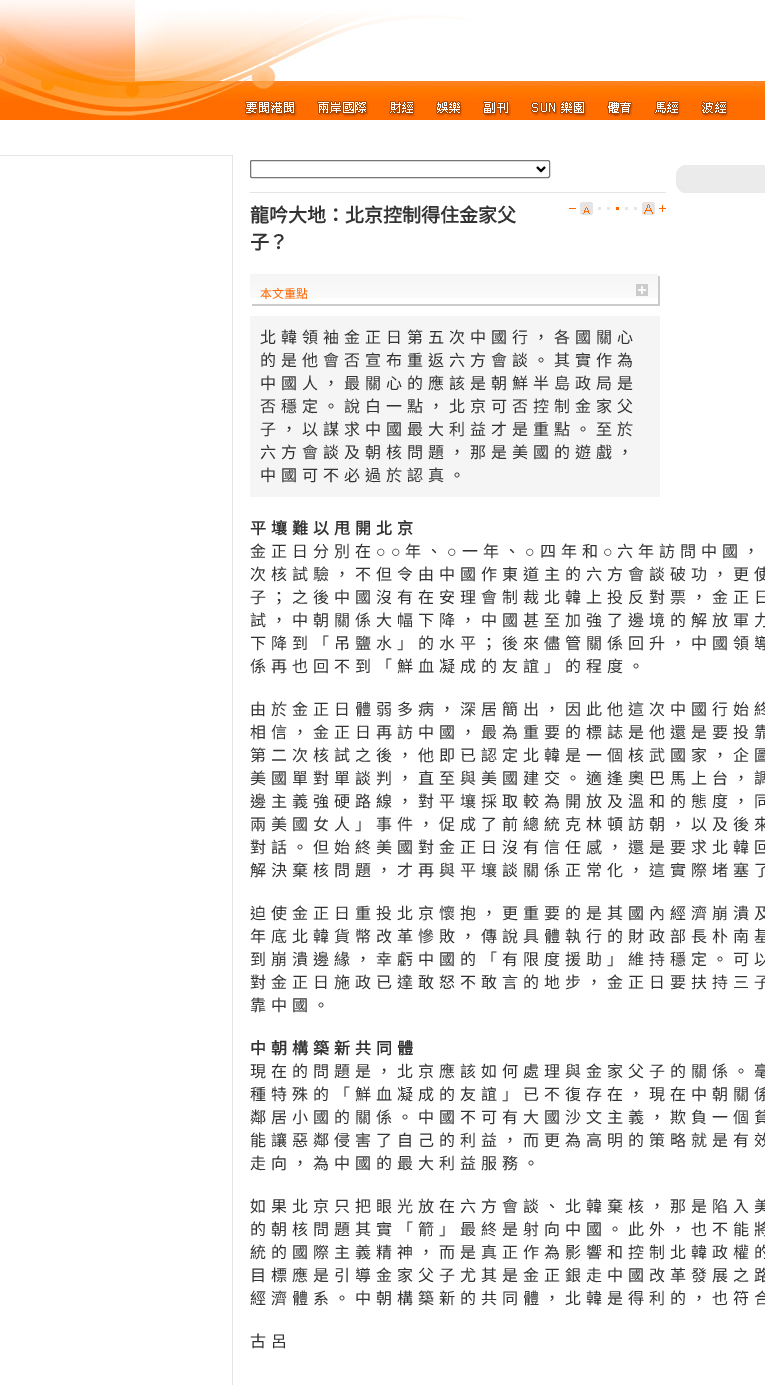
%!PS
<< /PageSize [765 1385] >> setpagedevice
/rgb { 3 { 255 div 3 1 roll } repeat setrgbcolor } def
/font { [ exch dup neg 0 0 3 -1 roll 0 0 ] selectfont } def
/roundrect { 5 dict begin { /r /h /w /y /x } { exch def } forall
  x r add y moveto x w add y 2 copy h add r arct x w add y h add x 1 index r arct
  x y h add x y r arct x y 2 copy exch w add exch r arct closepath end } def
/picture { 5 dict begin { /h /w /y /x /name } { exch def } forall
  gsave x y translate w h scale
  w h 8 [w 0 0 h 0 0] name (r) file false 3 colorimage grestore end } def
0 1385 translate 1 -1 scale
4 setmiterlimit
255 255 255 rgb
0 0 765 1385 rectfill
(img/1.rgb) 0 0 765 120 picture
(img/2.rgb) 239 93 58 24 picture
(img/3.rgb) 317 101 52 16 picture
(img/4.rgb) 389 101 27 16 picture
(img/5.rgb) 436 101 27 16 picture
(img/6.rgb) 483 101 28 16 picture
(img/7.rgb) 531 101 56 16 picture
(img/8.rgb) 607 101 26 16 picture
(img/9.rgb) 654 101 27 16 picture
(img/10.rgb) 701 101 28 16 picture
[
  [232 155 1 1230 229 229 229]
  [0 155 232 1 229 229 229]
  [676 165 89 28 235 235 235]
] { aload pop rgb rectfill } forall
(img/11.rgb) 676 165 8 8 picture
(img/12.rgb) 676 185 8 8 picture
118 118 118 rgb
250.5 160.5 299 17 1.5 roundrect stroke
0 0 0 rgb
2 setlinewidth
537 167 moveto 541 171 lineto 545 167 lineto stroke
228 228 228 rgb
250 192 416 1 rectfill
(img/13.rgb) 569 202 24 13 picture
[
  [598 207 3 3 230 230 230]
  [607 207 3 3 230 230 230]
  [616 207 3 3 255 102 0]
  [625 207 3 3 230 230 230]
  [634 207 3 3 230 230 230]
] { aload pop rgb rectfill } forall
(img/14.rgb) 642 202 24 13 picture
204 204 204 rgb
658 276 2 28 rectfill
(img/15.rgb) 250 274 408 24 picture
(img/16.rgb) 636 284 12 12 picture
252 304 408 2 rectfill
245 245 245 rgb
250 316 410 181 rectfill
/NotoSansCJKHK-Bold 19 font
51 51 51 rgb
250 222 moveto (龍吟大地：北京控制得住金家父) show
250 249 moveto (子？) show
/NotoSansCJKHK-Regular 12 font
255 102 0 rgb
260 298 moveto (本文重點) show
/NotoSansCJKHK-Regular 16 font
51 51 51 rgb
260 343 moveto 5 0 (北韓領袖金正日第五次中國行，各國關心) ashow
260 366 moveto 5 0 (的是他會否宣布重返六方會談。其實作為) ashow
260 389 moveto 5 0 (中國人，最關心的應該是朝鮮半島政局是) ashow
260 412 moveto 5 0 (否穩定。說白一點，北京可否控制金家父) ashow
260 435 moveto 5 0 (子，以謀求中國最大利益才是重點。至於) ashow
260 458 moveto 5 0 (六方會談及朝核問題，那是美國的遊戲，) ashow
260 481 moveto 5 0 (中國可不必過於認真。) ashow
/NotoSansCJKHK-Bold 16 font
250 534 moveto 5 0 (平壤難以甩開北京) ashow
/NotoSansCJKHK-Regular 16 font
250 557 moveto 5 0 (金正日分別在) ashow
/LiberationSans-Regular 16 font
376 557 moveto 5 0 (○○) ashow
/NotoSansCJKHK-Regular 16 font
405 557 moveto 5 0 (年、) ashow
/LiberationSans-Regular 16 font
447 557 moveto 5 0 (○) ashow
/NotoSansCJKHK-Regular 16 font
462 557 moveto 5 0 (一年、) ashow
/LiberationSans-Regular 16 font
525 557 moveto 5 0 (○) ashow
/NotoSansCJKHK-Regular 16 font
540 557 moveto 5 0 (四年和) ashow
/LiberationSans-Regular 16 font
603 557 moveto 5 0 (○) ashow
/NotoSansCJKHK-Regular 16 font
617 557 moveto 5 0 (六年訪問中國，) ashow
250 580 moveto 5 0 (次核試驗，不但令由中國作東道主的六方會談破功，更使) ashow
250 603 moveto 5 0 (子；之後中國沒有在安理會制裁北韓上投反對票，金正日) ashow
250 626 moveto 5 0 (試，中朝關係大幅下降，中國甚至加強了邊境的解放軍力) ashow
250 649 moveto 5 0 (下降到「吊鹽水」的水平；後來儘管關係回升，中國領導) ashow
250 672 moveto 5 0 (係再也回不到「鮮血凝成的友誼」的程度。) ashow
250 715 moveto 5 0 (由於金正日體弱多病，深居簡出，因此他這次中國行始終) ashow
250 738 moveto 5 0 (相信，金正日再訪中國，最為重要的標誌是他還是要投靠) ashow
250 761 moveto 5 0 (第二次核試之後，他即已認定北韓是一個核武國家，企圖) ashow
250 784 moveto 5 0 (美國單對單談判，直至與美國建交。適逢奧巴馬上台，調) ashow
250 807 moveto 5 0 (邊主義強硬路線，對平壤採取較為開放及溫和的態度，同) ashow
250 830 moveto 5 0 (兩美國女人」事件，促成了前總統克林頓訪朝，以及後來) ashow
250 853 moveto 5 0 (對話。但始終美國對金正日沒有信任感，還是要求北韓回) ashow
250 876 moveto 5 0 (解決棄核問題，才再與平壤談關係正常化，這實際堵塞了) ashow
250 919 moveto 5 0 (迫使金正日重投北京懷抱，更重要的是其國內經濟崩潰及) ashow
250 942 moveto 5 0 (年底北韓貨幣改革慘敗，傳說具體執行的財政部長朴南基) ashow
250 965 moveto 5 0 (到崩潰邊緣，幸虧中國的「有限度援助」維持穩定。可以) ashow
250 988 moveto 5 0 (對金正日施政已達敢怒不敢言的地步，金正日要扶持三子) ashow
250 1011 moveto 5 0 (靠中國。) ashow
/NotoSansCJKHK-Bold 16 font
250 1054 moveto 5 0 (中朝構築新共同體) ashow
/NotoSansCJKHK-Regular 16 font
250 1077 moveto 5 0 (現在的問題是，北京應該如何處理與金家父子的關係。毫) ashow
250 1100 moveto 5 0 (種特殊的「鮮血凝成的友誼」已不復存在，現在中朝關係) ashow
250 1123 moveto 5 0 (鄰居小國的關係。中國不可有大國沙文主義，欺負一個貧) ashow
250 1146 moveto 5 0 (能讓惡鄰侵害了自己的利益，而更為高明的策略就是有效) ashow
250 1169 moveto 5 0 (走向，為中國的最大利益服務。) ashow
250 1212 moveto 5 0 (如果北京只把眼光放在六方會談、北韓棄核，那是陷入美) ashow
250 1235 moveto 5 0 (的朝核問題其實「箭」最終是射向中國。此外，也不能將) ashow
250 1258 moveto 5 0 (統的國際主義精神，而是真正作為影響和控制北韓政權的) ashow
250 1281 moveto 5 0 (目標應是引導金家父子尤其是金正銀走中國改革發展之路) ashow
250 1304 moveto 5 0 (經濟體系。中朝構築新的共同體，北韓是得利的，也符合) ashow
250 1347 moveto 5 0 (古呂) ashow
showpage
